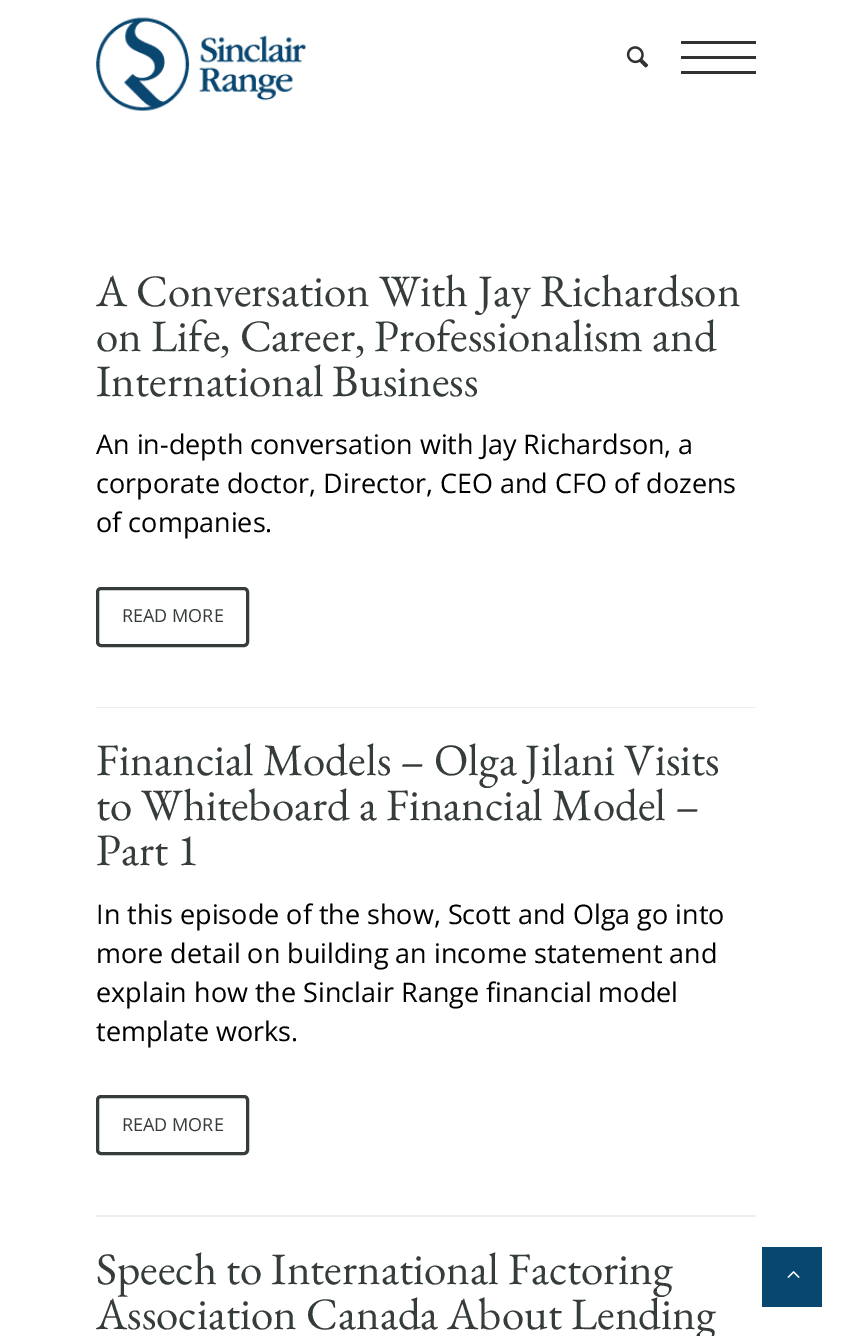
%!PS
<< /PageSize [851 1336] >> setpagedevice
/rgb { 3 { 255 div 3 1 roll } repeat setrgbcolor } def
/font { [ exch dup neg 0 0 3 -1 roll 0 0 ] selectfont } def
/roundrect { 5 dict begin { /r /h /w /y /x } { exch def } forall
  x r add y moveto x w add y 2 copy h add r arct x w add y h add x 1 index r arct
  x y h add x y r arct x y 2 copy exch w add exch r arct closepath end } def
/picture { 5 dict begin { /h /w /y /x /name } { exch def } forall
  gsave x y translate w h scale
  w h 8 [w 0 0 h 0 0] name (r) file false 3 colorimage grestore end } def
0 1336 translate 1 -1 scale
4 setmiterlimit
255 255 255 rgb
0 0 851 1336 rectfill
(img/1.rgb) 96 17 210 94 picture
(img/2.rgb) 626 46 23 22 picture
[
  [681 41 75 3 50 50 50]
  [681 56 75 3 50 50 50]
  [681 71 75 3 50 50 50]
] { aload pop rgb rectfill } forall
54 60 59 rgb
3 setlinewidth
97.5 588.5 150 57 3.5 roundrect stroke
238 238 238 rgb
96 707 660 1 rectfill
54 60 59 rgb
97.5 1096.5 150 57 3.5 roundrect stroke
238 238 238 rgb
96 1215 660 2 rectfill
8 71 112 rgb
762 1247 60 60 rectfill
(img/3.rgb) 787 1271 13 7 picture
/EBGaramond-Regular 45 font
54 60 59 rgb
[
  [(A Conversation With Jay Richardson) 96 306]
  [(on Life, Career, Professionalism and) 96 351]
  [(International Business) 96 396]
] { aload pop moveto show } forall
/OpenSans-Regular 27 font
0 0 0 rgb
[
  [(An in-depth conversation with Jay Richardson, a) 96 454]
  [(corporate doctor, Director, CEO and CFO of dozens) 96 493]
  [(of companies.) 96 532]
] { aload pop moveto show } forall
/OpenSans-Regular 18 font
54 60 59 rgb
122 622 moveto (READ MORE) show
/EBGaramond-Regular 45 font
[
  [(Financial Models – Olga Jilani Visits) 96 775]
  [(to Whiteboard a Financial Model –) 96 820]
  [(Part 1) 96 865]
] { aload pop moveto show } forall
/OpenSans-Regular 27 font
0 0 0 rgb
[
  [(In this episode of the show, Scott and Olga go into) 96 924]
  [(more detail on building an income statement and) 96 963]
  [(explain how the Sinclair Range financial model) 96 1002]
  [(template works.) 96 1041]
] { aload pop moveto show } forall
/OpenSans-Regular 18 font
54 60 59 rgb
122 1131 moveto (READ MORE) show
/EBGaramond-Regular 45 font
96 1284 moveto (Speech to International Factoring) show
96 1329 moveto (Association Canada About Lending) show
showpage
